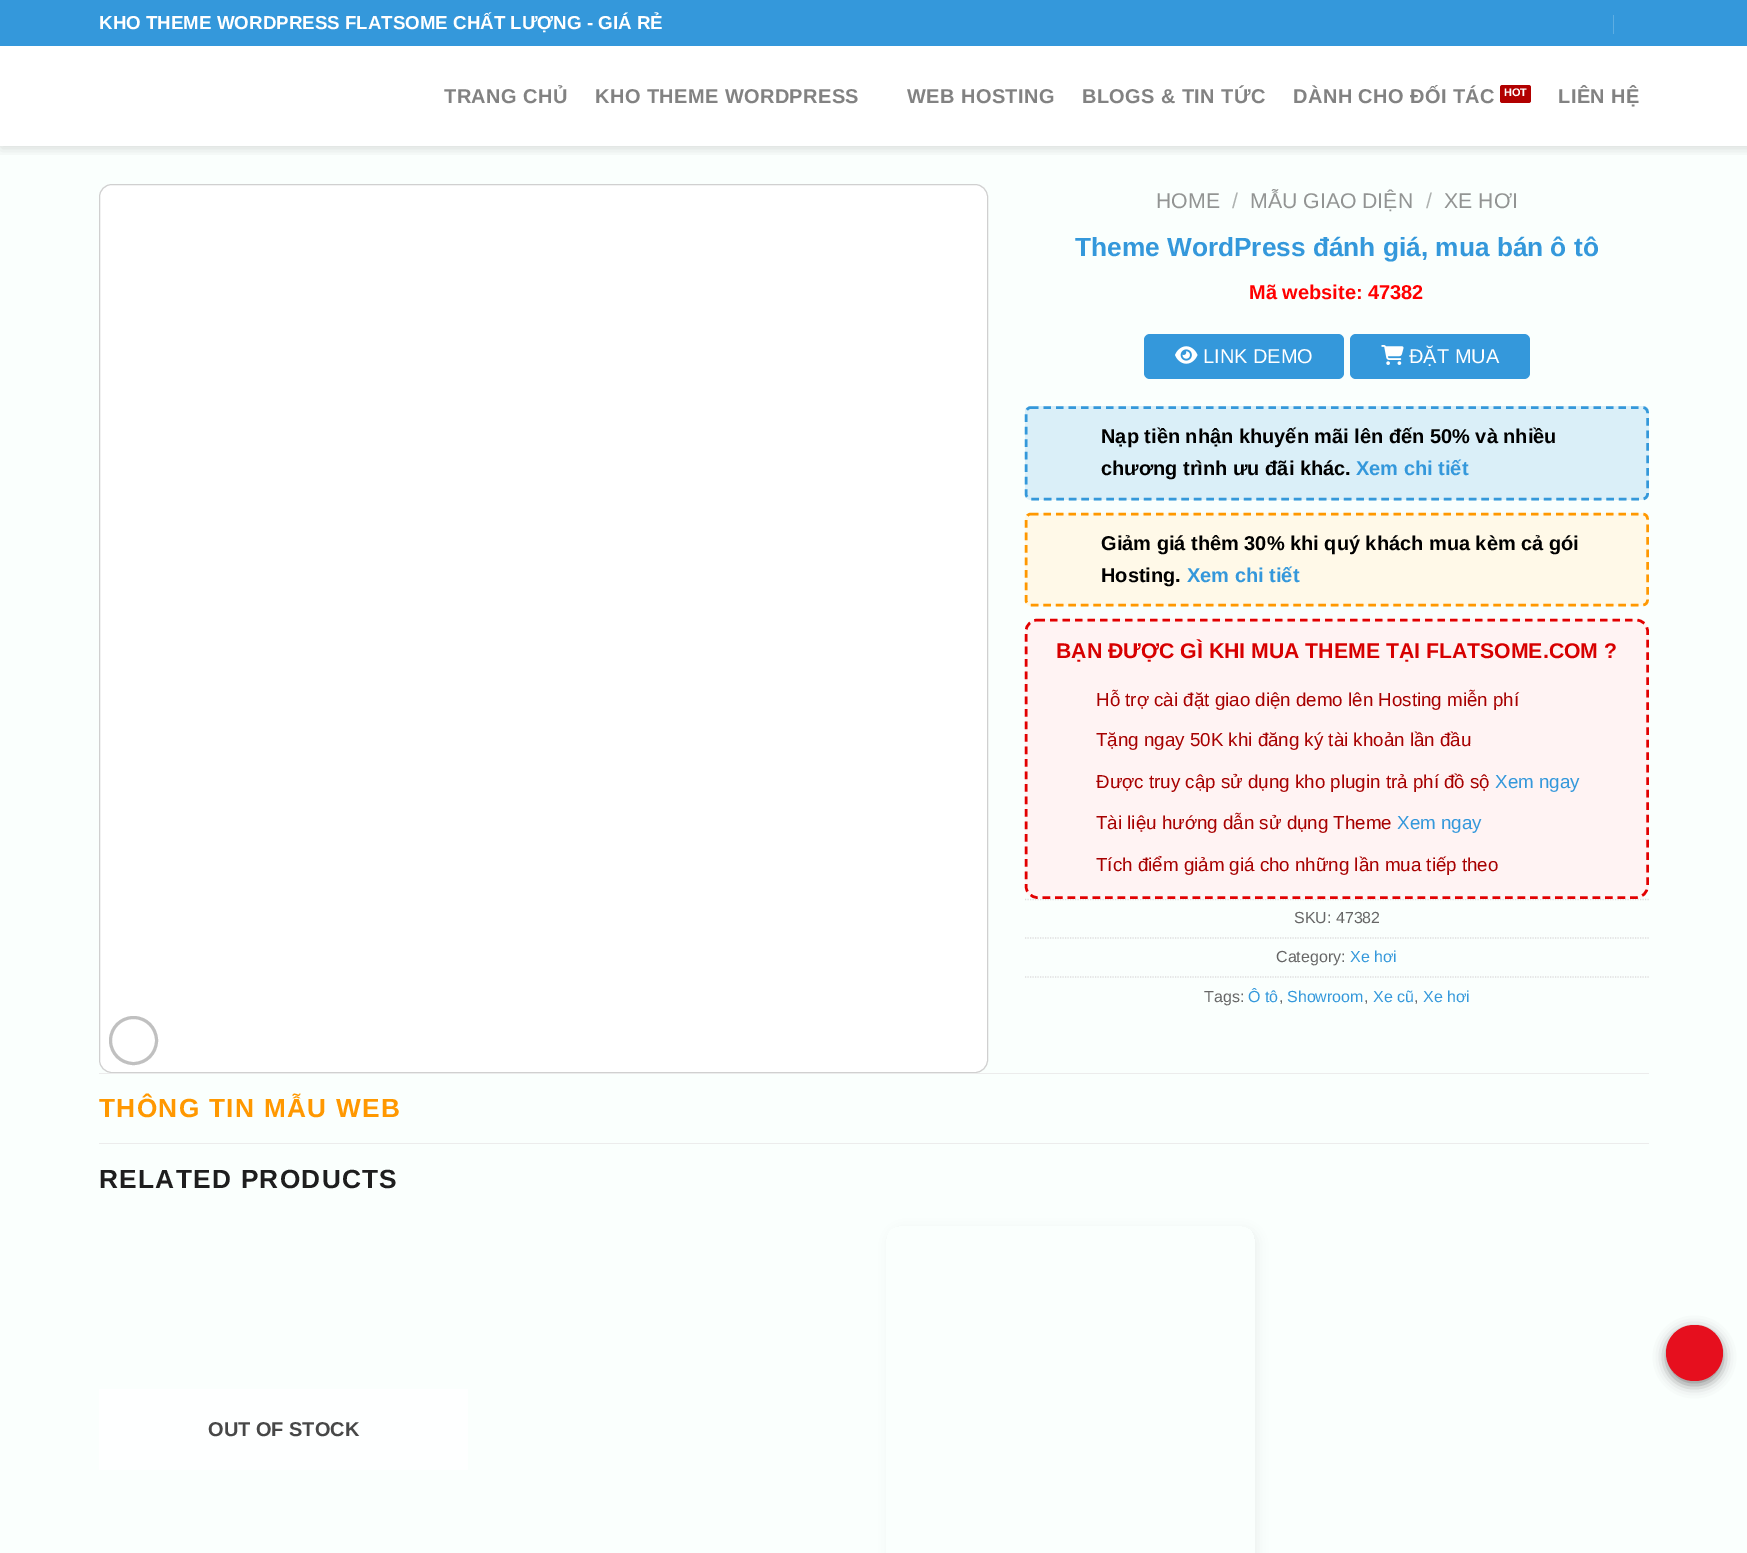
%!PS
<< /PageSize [1747 1553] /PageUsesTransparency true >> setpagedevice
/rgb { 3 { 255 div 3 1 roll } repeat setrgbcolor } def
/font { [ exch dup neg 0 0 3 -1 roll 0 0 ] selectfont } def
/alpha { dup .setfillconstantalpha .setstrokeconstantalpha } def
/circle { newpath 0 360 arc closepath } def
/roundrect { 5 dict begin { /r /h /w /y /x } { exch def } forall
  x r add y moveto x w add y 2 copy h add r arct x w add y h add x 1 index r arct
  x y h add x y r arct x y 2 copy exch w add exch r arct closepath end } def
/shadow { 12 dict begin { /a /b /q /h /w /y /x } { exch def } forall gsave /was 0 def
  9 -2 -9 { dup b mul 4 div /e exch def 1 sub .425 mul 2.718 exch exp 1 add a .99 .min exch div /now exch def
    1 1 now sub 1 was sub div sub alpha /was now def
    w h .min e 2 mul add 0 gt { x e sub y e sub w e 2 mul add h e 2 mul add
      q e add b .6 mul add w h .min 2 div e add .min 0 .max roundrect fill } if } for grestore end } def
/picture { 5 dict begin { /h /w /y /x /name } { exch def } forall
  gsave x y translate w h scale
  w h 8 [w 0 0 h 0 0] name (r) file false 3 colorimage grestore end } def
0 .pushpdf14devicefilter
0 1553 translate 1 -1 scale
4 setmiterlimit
255 255 255 rgb
0 0 1747 1553 rectfill
250 255 253 rgb
0 146 1747 1407 rectfill
gsave
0 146 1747 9 rectclip
0 0 0 rgb
1 1 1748 147 0 6 0.15 shadow
grestore
52 152 219 rgb
0 0 1747 46 rectfill
93 173 226 rgb
1613 15 1 19 rectfill
178 0 0 rgb
1500 85 31 18 2.5 roundrect fill
255 255 255 rgb
99.5 184.5 888 888 12.5 roundrect gsave fill grestore
208 208 208 rgb
stroke
192 192 192 rgb
3 setlinewidth
133.5 1040.5 23 circle stroke
52 152 219 rgb
1144 334 200 45 6 roundrect fill
(img/1.rgb) 1175 346 23 18 picture
1350 334 180 45 6 roundrect fill
(img/2.rgb) 1381 345 23 20 picture
218 239 248 rgb
1025 406 624 94 6 roundrect fill
52 152 218 rgb
2.5 setlinewidth
[7.5 5] 0 setdash
1031 407.5 moveto 1642.5 407.5 lineto 1645.5 407.5 1647.5 409.5 1647.5 412.5 curveto 1647.5 494 lineto 1647.5 496.5 1645.5 499 1642.5 499 curveto 1031 499 lineto 1028.5 499 1026 496.5 1026 494 curveto 1026 412.5 lineto 1026 409.5 1028.5 407.5 1031 407.5 curveto closepath stroke
255 249 232 rgb
1025 513 624 93 6 roundrect fill
255 152 0 rgb
1031 514 moveto 1642.5 514 lineto 1645.5 514 1647.5 516 1647.5 519 curveto 1647.5 600 lineto 1647.5 603 1645.5 605 1642.5 605 curveto 1031 605 lineto 1028.5 605 1026 603 1026 600 curveto 1026 519 lineto 1026 516 1028.5 514 1031 514 curveto closepath stroke
221 221 221 rgb
1.2 setlinewidth
[1.25 1.25] 0 setdash
1025 899.5 moveto 1649 899.5 lineto stroke
255 243 243 rgb
1025 619 624 280 13 roundrect fill
226 0 0 rgb
2.5 setlinewidth
[7.5 5] 0 setdash
1037.5 620 moveto 1636 620 lineto 1642.5 620 1647.5 625 1647.5 631 curveto 1647.5 886 lineto 1647.5 892.5 1642.5 897.5 1636 897.5 curveto 1037.5 897.5 lineto 1031.5 897.5 1026 892.5 1026 886 curveto 1026 631 lineto 1026 625 1031.5 620 1037.5 620 curveto closepath stroke
221 221 221 rgb
1.2 setlinewidth
[1.25 1.25] 0 setdash
1025 938 moveto 1649 938 lineto stroke
1025 977 moveto 1649 977 lineto stroke
[
  [99 1073 1550 1 236 236 236]
  [99 1143 1550 1 236 236 236]
] { aload pop rgb rectfill } forall
0.81 alpha
[
  [99 1389 369 81 255 255 255]
] { aload pop rgb rectfill } forall
gsave
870 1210 moveto 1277 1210 lineto 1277 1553 lineto 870 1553 lineto closepath 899 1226 moveto 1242 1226 lineto 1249 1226 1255 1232 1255 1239 curveto 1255 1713 lineto 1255 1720 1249 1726 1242 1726 curveto 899 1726 lineto 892 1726 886 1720 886 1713 curveto 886 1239 lineto 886 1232 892 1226 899 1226 curveto closepath eoclip newpath
1 alpha
0 0 0 rgb
889 1229 369 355 13 6 0.06 shadow
grestore
1 alpha
136 136 136 rgb
1666 1329 57 56 28 6 1 shadow
230 15 30 rgb
1666 1325 57 56 28 roundrect fill
/LiberationSans-Bold 18.75 font
255 255 255 rgb
99 29 moveto (KHO THEME WORDPRESS FLATSOME CHẤT LƯỢNG - GIÁ RẺ) show
/LiberationSans-Bold 20 font
130 130 130 rgb
444 103 moveto 0.4 0 (TRANG CHỦ) ashow
595 103 moveto 0.4 0 (KHO THEME WORDPRESS) ashow
907 103 moveto 0.4 0 (WEB HOSTING) ashow
1082 103 moveto 0.4 0 (BLOGS & TIN TỨC) ashow
1293 103 moveto 0.4 0 (DÀNH CHO ĐỐI TÁC) ashow
/LiberationSans-Bold 11 font
255 255 255 rgb
1504 96 moveto (HOT) show
/LiberationSans-Bold 20 font
130 130 130 rgb
1558 103 moveto 0.4 0 (LIÊN HỆ) ashow
/LiberationSans-Regular 21.25 font
146 148 147 rgb
1156 208 moveto (HOME) show
174 178 176 rgb
1232 208 moveto (/) show
146 148 147 rgb
1250 208 moveto (MẪU GIAO DIỆN) show
174 178 176 rgb
1426 208 moveto (/) show
146 148 147 rgb
1444 208 moveto (XE HƠI) show
/LiberationSans-Bold 26.25 font
52 152 219 rgb
1075 256 moveto (Theme WordPress đánh giá, mua bán ô tô) show
/LiberationSans-Bold 20 font
255 0 0 rgb
1249 299 moveto (Mã website: 47382) show
/LiberationSans-Regular 20 font
255 255 255 rgb
1203 363 moveto (LINK DEMO) show
1409 363 moveto (ĐẶT MUA) show
/LiberationSans-Bold 20 font
0 0 0 rgb
1101 443 moveto (Nạp tiền nhận khuyến mãi lên đến 50% và nhiều) show
1101 475 moveto (chương trình ưu đãi khác.) show
52 152 219 rgb
1356 475 moveto (Xem chi tiết) show
0 0 0 rgb
1101 550 moveto (Giảm giá thêm 30% khi quý khách mua kèm cả gói) show
1101 582 moveto (Hosting.) show
52 152 219 rgb
1187 582 moveto (Xem chi tiết) show
/LiberationSans-Bold 21.25 font
215 0 0 rgb
1056 658 moveto (BẠN ĐƯỢC GÌ KHI MUA THEME TẠI FLATSOME.COM ?) show
/LiberationSans-Regular 18.75 font
167 0 0 rgb
[
  [(Hỗ trợ cài đặt giao diện demo lên Hosting miễn phí) 1096 706]
  [(Tặng ngay 50K khi đăng ký tài khoản lần đầu) 1096 746]
  [(Được truy cập sử dụng kho plugin trả phí đồ sộ) 1096 788]
] { aload pop moveto show } forall
52 152 219 rgb
1495 788 moveto (Xem ngay) show
167 0 0 rgb
1096 829 moveto (Tài liệu hướng dẫn sử dụng Theme) show
52 152 219 rgb
1397 829 moveto (Xem ngay) show
167 0 0 rgb
1096 871 moveto (Tích điểm giảm giá cho những lần mua tiếp theo) show
/LiberationSans-Regular 16 font
102 102 102 rgb
1294 923 moveto (SKU: 47382) show
1276 962 moveto (Category:) show
52 152 219 rgb
1350 962 moveto (Xe hơi) show
102 102 102 rgb
1204 1002 moveto (Tags:) show
52 152 219 rgb
1248 1002 moveto (Ô tô) show
102 102 102 rgb
1279 1002 moveto (,) show
52 152 219 rgb
1287 1002 moveto (Showroom) show
102 102 102 rgb
1364 1002 moveto (,) show
52 152 219 rgb
1373 1002 moveto (Xe cũ) show
102 102 102 rgb
1414 1002 moveto (,) show
52 152 219 rgb
1423 1002 moveto (Xe hơi) show
/LiberationSans-Bold 26.25 font
255 152 0 rgb
99 1117 moveto 1.3 0 (THÔNG TIN MẪU WEB) ashow
30 30 30 rgb
99 1188 moveto 1.3 0 (RELATED PRODUCTS) ashow
/LiberationSans-Bold 20 font
71 71 71 rgb
208 1436 moveto (OUT OF STOCK) show
.poppdf14devicefilter showpage
